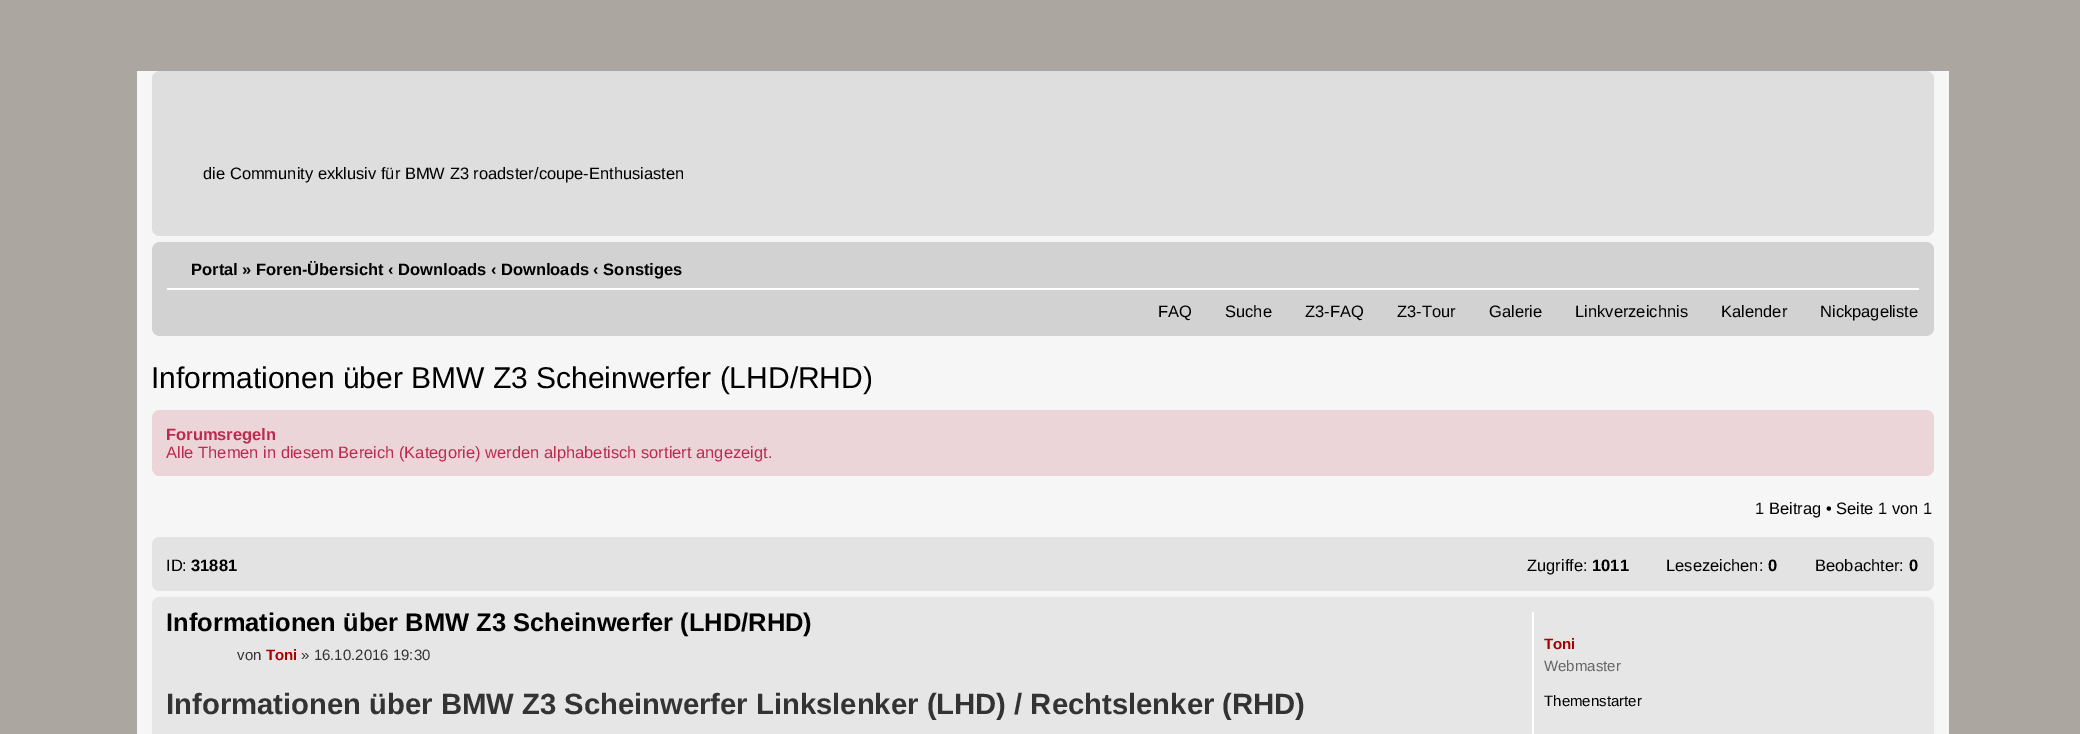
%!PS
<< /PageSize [2080 734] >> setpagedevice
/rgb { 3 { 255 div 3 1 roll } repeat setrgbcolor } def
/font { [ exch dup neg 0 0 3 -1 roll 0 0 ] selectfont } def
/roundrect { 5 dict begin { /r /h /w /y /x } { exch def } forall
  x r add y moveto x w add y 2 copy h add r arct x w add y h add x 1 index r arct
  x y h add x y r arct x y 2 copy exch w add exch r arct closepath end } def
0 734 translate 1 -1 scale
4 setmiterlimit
171 167 160 rgb
0 0 2080 734 rectfill
247 246 246 rgb
137 71 1812 663 rectfill
222 222 222 rgb
152 71 1782 165 8 roundrect fill
210 210 210 rgb
152 242 1782 94 8 roundrect fill
255 255 255 rgb
167 288 1752 2 rectfill
236 213 216 rgb
152 410 1782 66 8 roundrect fill
227 227 227 rgb
152 537 1782 54 8 roundrect fill
230 230 230 rgb
152 597 1782 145 8 roundrect fill
255 255 255 rgb
1532 612 2 122 rectfill
/LiberationSans-Regular 16.5 font
0 0 0 rgb
203 179 moveto (die Community exklusiv für BMW Z3 roadster/coupe-Enthusiasten) show
/LiberationSans-Bold 16.5 font
191 275 moveto (Portal » Foren-Übersicht ‹ Downloads ‹ Downloads ‹ Sonstiges) show
/LiberationSans-Regular 16.5 font
[
  [(FAQ) 1158 317]
  [(Suche) 1225 317]
  [(Z3-FAQ) 1305 317]
  [(Z3-Tour) 1397 317]
  [(Galerie) 1489 317]
  [(Linkverzeichnis) 1575 317]
  [(Kalender) 1721 317]
  [(Nickpageliste) 1820 317]
] { aload pop moveto show } forall
/LiberationSans-Regular 30 font
151 388 moveto (Informationen über BMW Z3 Scheinwerfer \(LHD/RHD\)) show
/LiberationSans-Bold 16.5 font
188 42 77 rgb
166 440 moveto (Forumsregeln) show
/LiberationSans-Regular 16.5 font
166 458 moveto (Alle Themen in diesem Bereich \(Kategorie\) werden alphabetisch sortiert angezeigt.) show
0 0 0 rgb
1755 514 moveto (1 Beitrag • Seite 1 von 1) show
166 571 moveto (ID:) show
/LiberationSans-Bold 16.5 font
191 571 moveto (31881) show
/LiberationSans-Regular 16.5 font
1527 571 moveto (Zugriffe:) show
/LiberationSans-Bold 16.5 font
1592 571 moveto (1011) show
/LiberationSans-Regular 16.5 font
1666 571 moveto (Lesezeichen:) show
/LiberationSans-Bold 16.5 font
1768 571 moveto (0) show
/LiberationSans-Regular 16.5 font
1815 571 moveto (Beobachter:) show
/LiberationSans-Bold 16.5 font
1909 571 moveto (0) show
/LiberationSans-Bold 25.5 font
166 631 moveto (Informationen über BMW Z3 Scheinwerfer \(LHD/RHD\)) show
/LiberationSans-Regular 15 font
51 51 51 rgb
237 660 moveto (von) show
/LiberationSans-Bold 15 font
170 0 0 rgb
266 660 moveto (Toni) show
/LiberationSans-Regular 15 font
51 51 51 rgb
301 660 moveto (» 16.10.2016 19:30) show
/LiberationSans-Bold 29.25 font
166 714 moveto (Informationen über BMW Z3 Scheinwerfer Linkslenker \(LHD\) / Rechtslenker \(RHD\)) show
/LiberationSans-Bold 15 font
170 0 0 rgb
1544 649 moveto (Toni) show
/LiberationSans-Regular 15 font
102 102 102 rgb
1544 671 moveto (Webmaster) show
0 0 0 rgb
1544 706 moveto (Themenstarter) show
showpage
